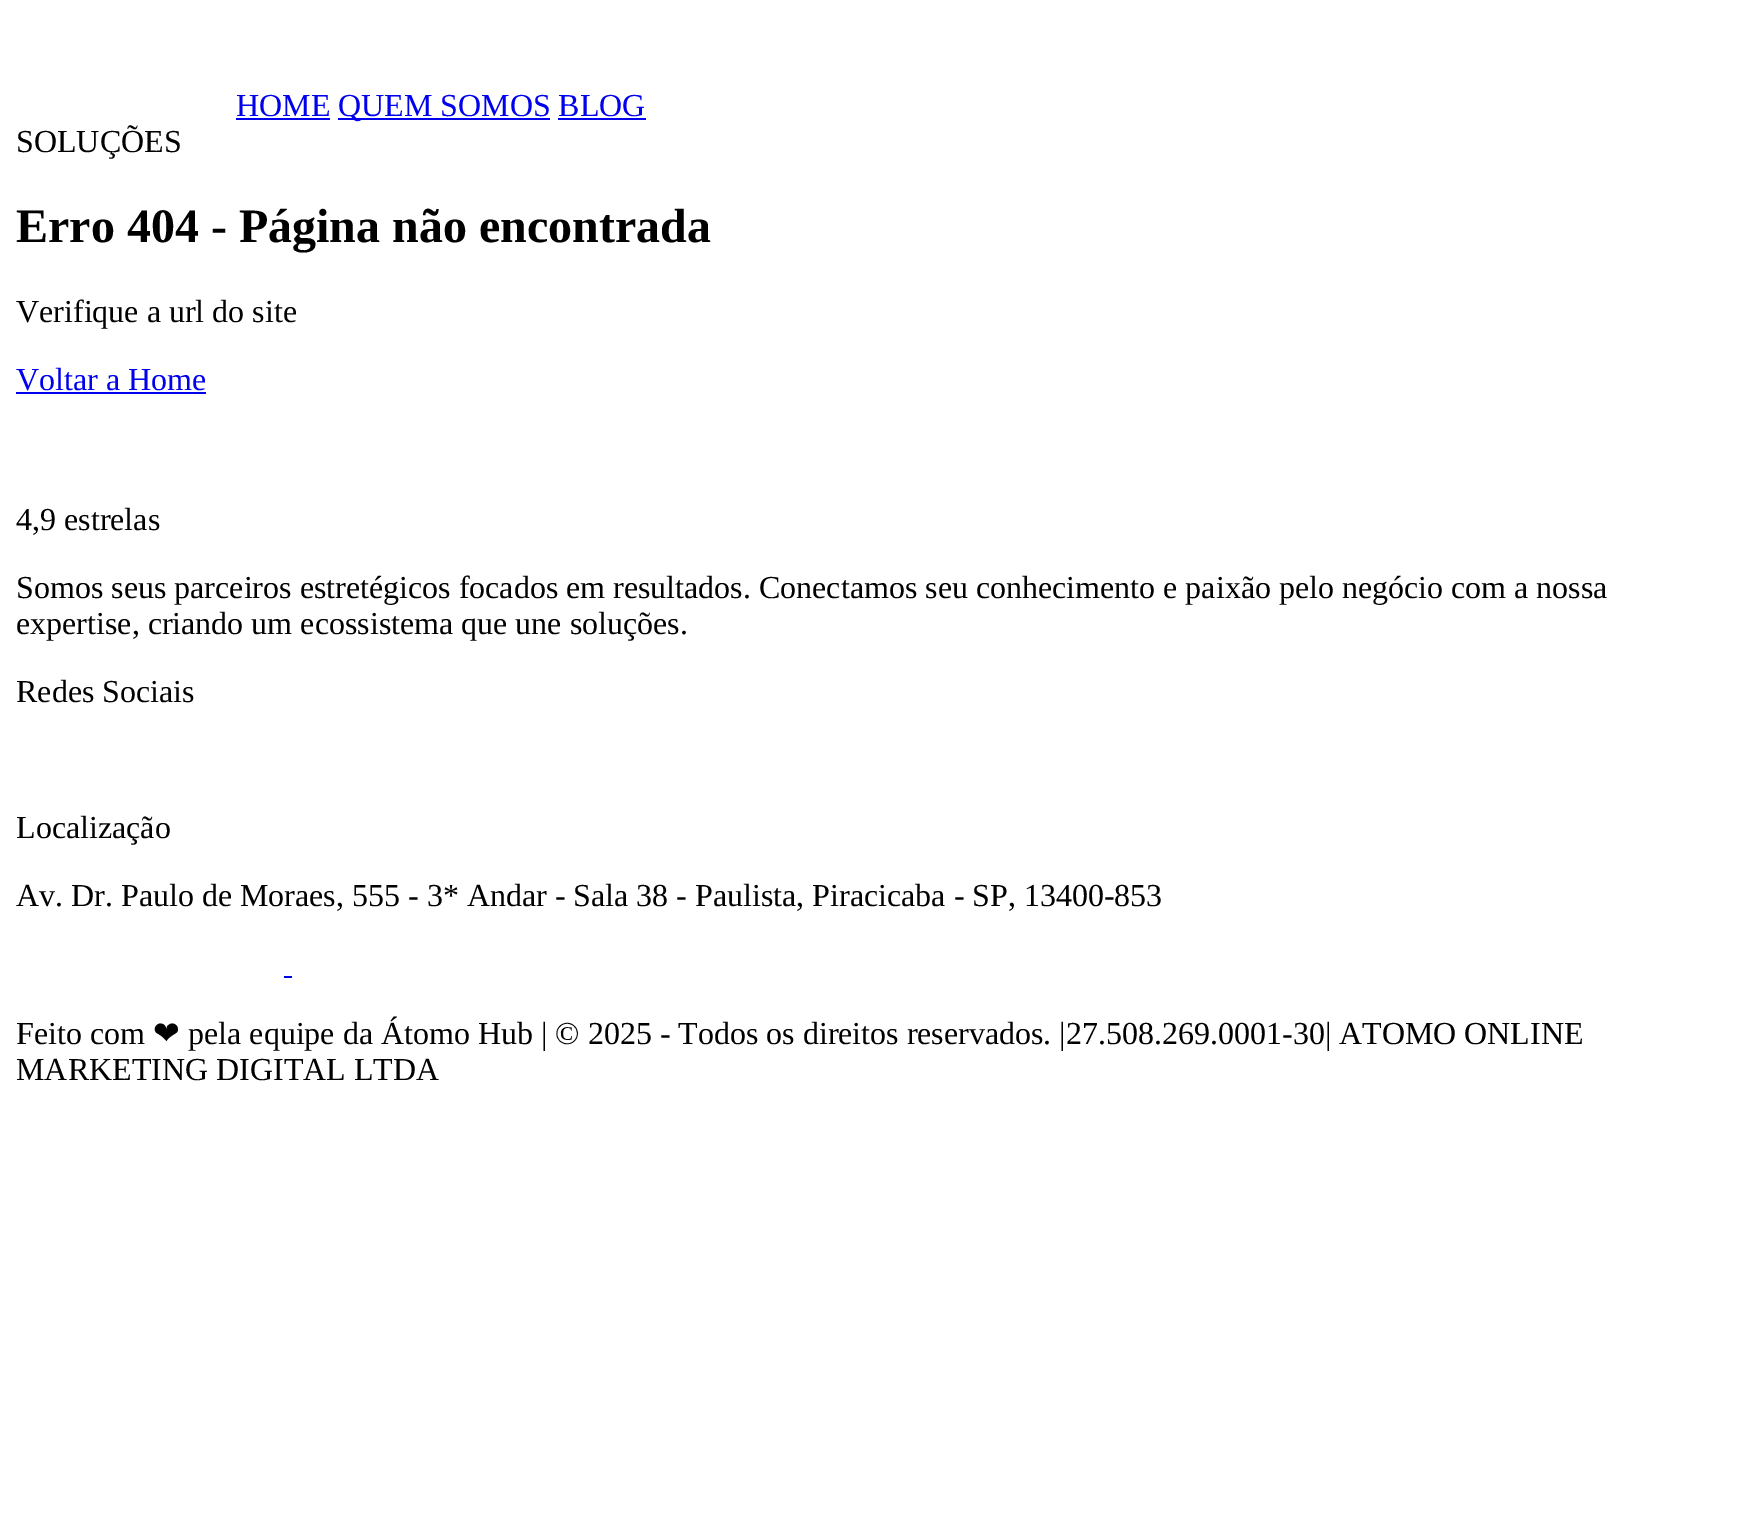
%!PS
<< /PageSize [1737 1526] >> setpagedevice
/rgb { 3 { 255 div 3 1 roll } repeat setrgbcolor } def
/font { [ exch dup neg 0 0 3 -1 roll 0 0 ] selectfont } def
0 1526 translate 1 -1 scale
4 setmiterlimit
255 255 255 rgb
0 0 1737 1526 rectfill
[
  [236 118 94 2 0 0 238]
  [338 118 212 2 0 0 238]
  [558 118 88 2 0 0 238]
  [16 392 190 2 0 0 238]
  [284 976 8 2 0 0 238]
] { aload pop rgb rectfill } forall
/LiberationSerif-Regular 32 font
236 116 moveto (HOME) show
338 116 moveto (QUEM SOMOS BLOG) show
0 0 0 rgb
16 152 moveto (SOLUÇÕES) show
/LiberationSerif-Bold 48 font
16 242 moveto (Erro 404 - Página não encontrada) show
/LiberationSerif-Regular 32 font
16 322 moveto (Verifique a url do site) show
0 0 238 rgb
16 390 moveto (Voltar a Home) show
0 0 0 rgb
[
  [(4,9 estrelas) 16 530]
  [(Somos seus parceiros estretégicos focados em resultados. Conectamos seu conhecimento e paixão pelo negócio com a nossa) 16 598]
  [(expertise, criando um ecossistema que une soluções.) 16 634]
  [(Redes Sociais) 16 702]
  [(Localização) 16 838]
  [(Av. Dr. Paulo de Moraes, 555 - 3* Andar - Sala 38 - Paulista, Piracicaba - SP, 13400-853) 16 906]
  [(Feito com) 16 1044]
] { aload pop moveto show } forall
/DejaVuSans-Regular 32 font
153 1044 moveto (❤) show
/LiberationSerif-Regular 32 font
188 1044 moveto (pela equipe da Átomo Hub | © 2025 - Todos os direitos reservados. |27.508.269.0001-30| ATOMO ONLINE) show
16 1080 moveto (MARKETING DIGITAL LTDA) show
showpage
